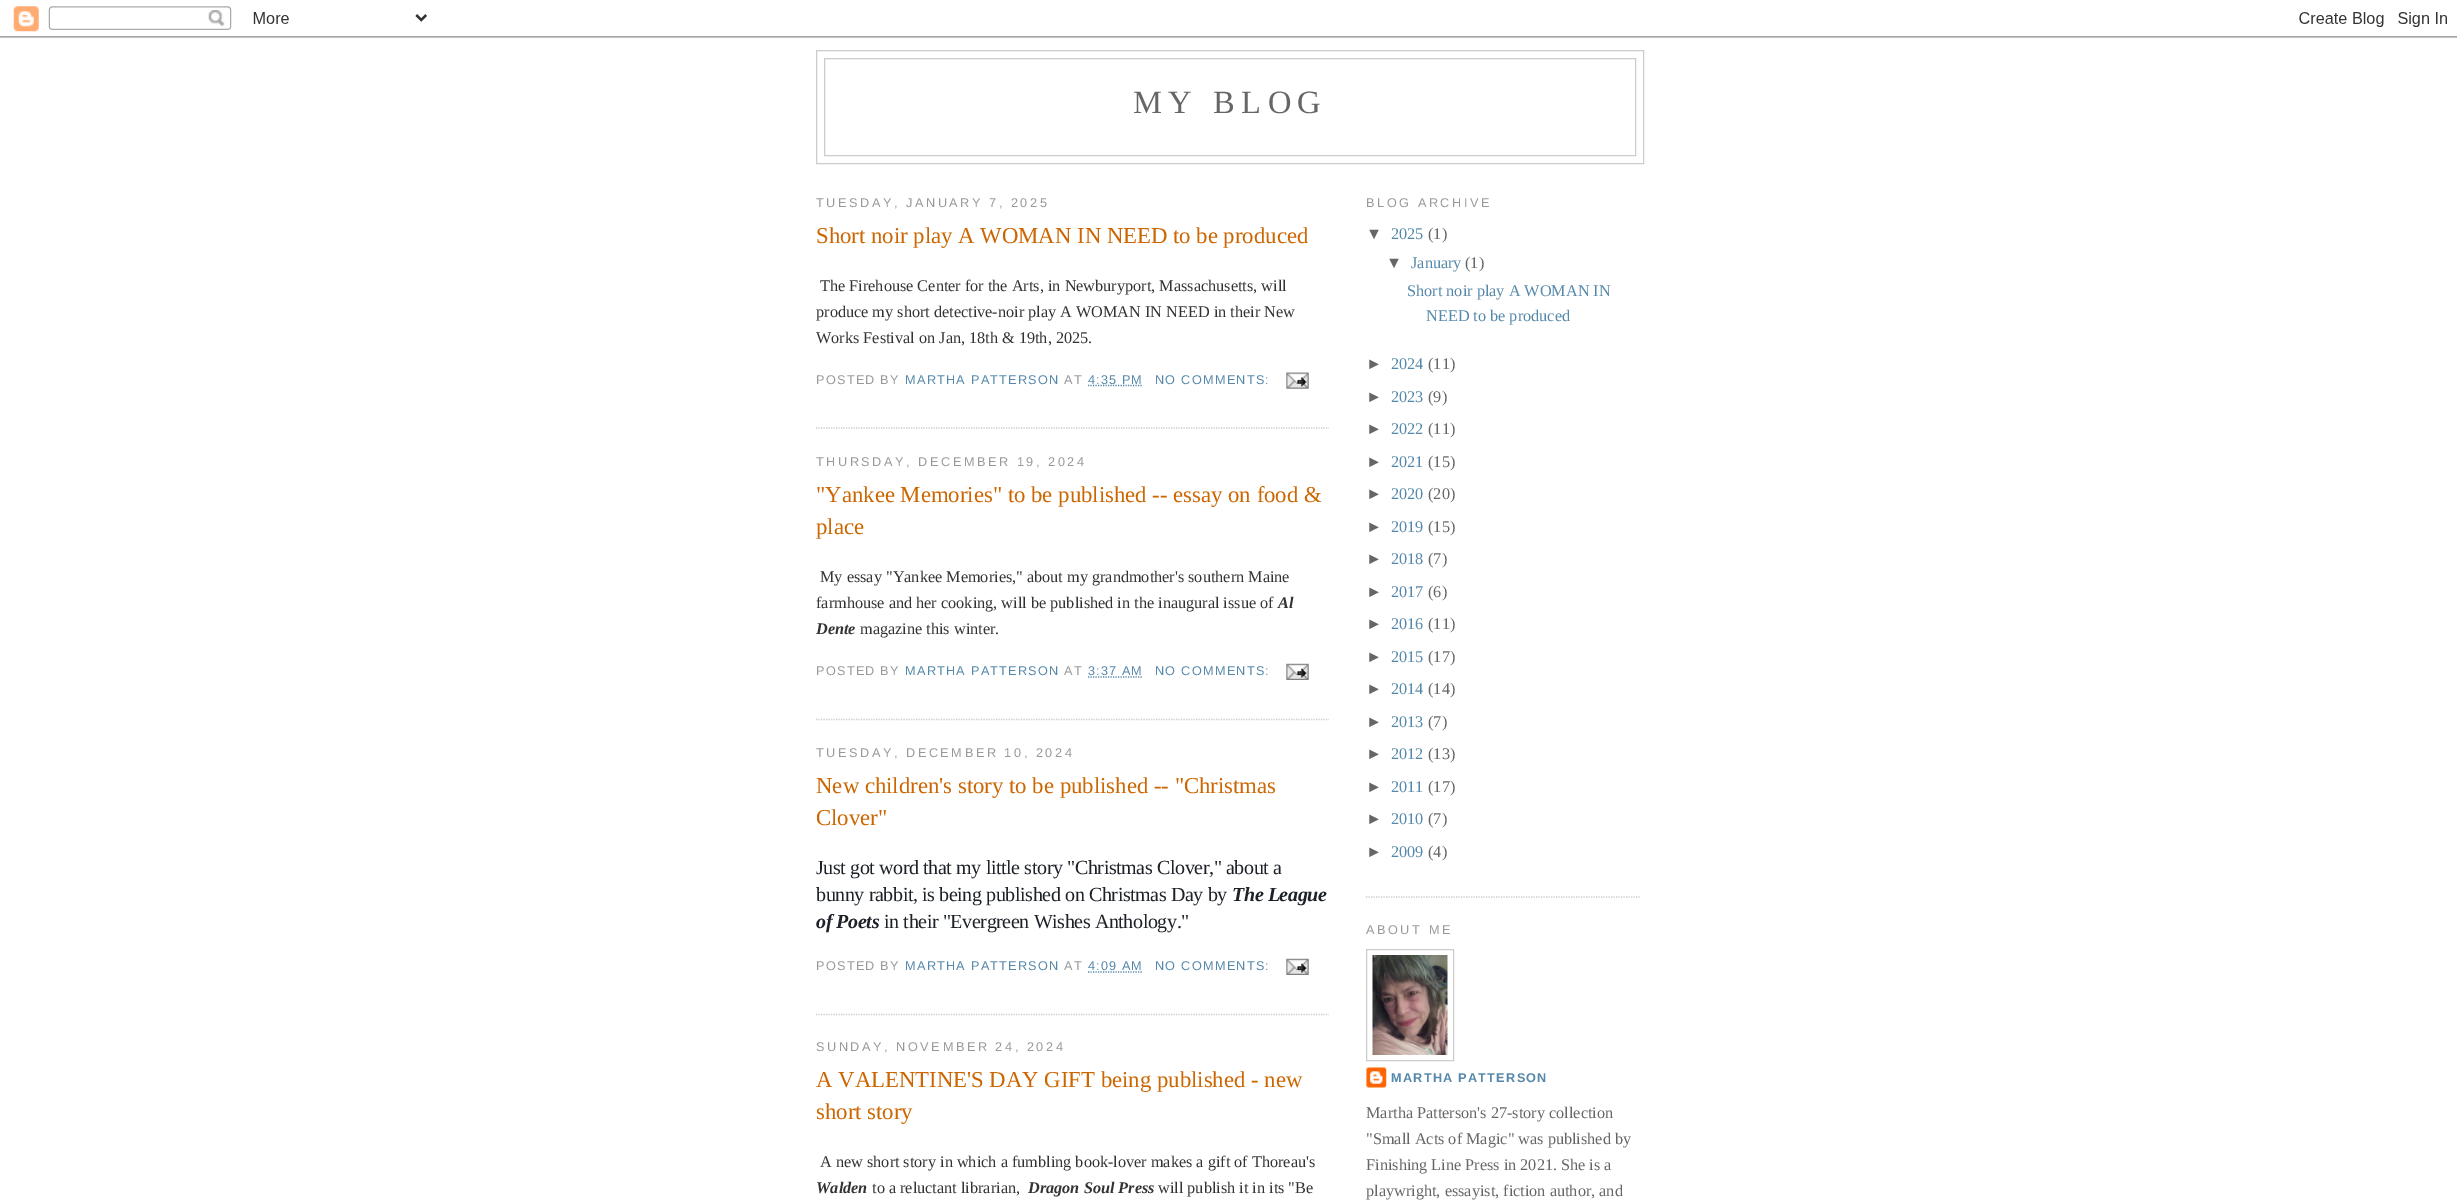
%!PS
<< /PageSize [2457 1203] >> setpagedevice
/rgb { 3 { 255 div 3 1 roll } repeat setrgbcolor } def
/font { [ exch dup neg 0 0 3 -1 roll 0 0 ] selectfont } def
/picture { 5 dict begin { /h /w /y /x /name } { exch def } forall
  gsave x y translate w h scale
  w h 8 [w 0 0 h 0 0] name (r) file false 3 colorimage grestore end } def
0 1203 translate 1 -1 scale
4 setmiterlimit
255 255 255 rgb
0 0 2457 1203 rectfill
(img/1.rgb) 0 6 2457 32 picture
204 204 204 rgb
816.5 50.5 827 113 rectstroke
824.5 58.5 811 97 rectstroke
1.2 setlinewidth
[1.25 1.25] 0 setdash
816 428 moveto 1329 428 lineto stroke
85 136 170 rgb
1088 385.5 moveto 1143 385.5 lineto stroke
(img/2.rgb) 1286 372 23 17 picture
204 204 204 rgb
816 719.5 moveto 1329 719.5 lineto stroke
85 136 170 rgb
1088 677 moveto 1143 677 lineto stroke
(img/3.rgb) 1286 663 23 17 picture
204 204 204 rgb
816 1014.5 moveto 1329 1014.5 lineto stroke
85 136 170 rgb
1088 972 moveto 1143 972 lineto stroke
(img/3.rgb) 1286 958 23 17 picture
204 204 204 rgb
1366 897 moveto 1641 897 lineto stroke
1 setlinewidth
[] 0 setdash
1366.5 949.5 87 111 rectstroke
(img/4.rgb) 1372 955 76 100 picture
(img/5.rgb) 1366 1067 21 21 picture
/LiberationSerif-Regular 32.5 font
102 102 102 rgb
1133 113 moveto 6.5 0 (MY BLOG) ashow
/LiberationSans-Regular 12.7 font
153 153 153 rgb
816 207 moveto 2.55 0 (TUESDAY, JANUARY 7, 2025) ashow
/LiberationSerif-Regular 22.75 font
204 102 0 rgb
816 243 moveto (Short noir play A WOMAN IN NEED to be produced) show
/LiberationSerif-Regular 16.25 font
51 51 51 rgb
[
  [(The Firehouse Center for the Arts, in Newburyport, Massachusetts, will) 820 291]
  [(produce my short detective-noir play A WOMAN IN NEED in their New) 816 317]
  [(Works Festival on Jan, 18th & 19th, 2025.) 816 343]
] { aload pop moveto show } forall
/LiberationSans-Regular 12.7 font
153 153 153 rgb
816 384 moveto 1.25 0 (POSTED BY) ashow
85 136 170 rgb
905 384 moveto 1.25 0 (MARTHA PATTERSON) ashow
153 153 153 rgb
1064 384 moveto 1.25 0 (AT) ashow
85 136 170 rgb
1088 384 moveto 1.25 0 (4:35 PM) ashow
1155 384 moveto 1.25 0 (NO COMMENTS:) ashow
153 153 153 rgb
816 466 moveto 2.55 0 (THURSDAY, DECEMBER 19, 2024) ashow
/LiberationSerif-Regular 22.75 font
204 102 0 rgb
816 502 moveto ("Yankee Memories" to be published -- essay on food &) show
816 534 moveto (place) show
/LiberationSerif-Regular 16.25 font
51 51 51 rgb
820 582 moveto (My essay "Yankee Memories," about my grandmother's southern Maine) show
816 608 moveto (farmhouse and her cooking, will be published in the inaugural issue of) show
/LiberationSerif-BoldItalic 16.25 font
1278 608 moveto (Al) show
816 634 moveto (Dente) show
/LiberationSerif-Regular 16.25 font
860 634 moveto (magazine this winter.) show
/LiberationSans-Regular 12.7 font
153 153 153 rgb
816 675 moveto 1.25 0 (POSTED BY) ashow
85 136 170 rgb
905 675 moveto 1.25 0 (MARTHA PATTERSON) ashow
153 153 153 rgb
1064 675 moveto 1.25 0 (AT) ashow
85 136 170 rgb
1088 675 moveto 1.25 0 (3:37 AM) ashow
1155 675 moveto 1.25 0 (NO COMMENTS:) ashow
153 153 153 rgb
816 757 moveto 2.55 0 (TUESDAY, DECEMBER 10, 2024) ashow
/LiberationSerif-Regular 22.75 font
204 102 0 rgb
816 793 moveto (New children's story to be published -- "Christmas) show
816 825 moveto (Clover") show
/LiberationSerif-Regular 20 font
29 34 40 rgb
816 874 moveto -0.4 0 (Just got word that my little story "Christmas Clover," about a) ashow
816 901 moveto -0.4 0 (bunny rabbit, is being published on Christmas Day by) ashow
/LiberationSerif-BoldItalic 20 font
1232 901 moveto -0.4 0 (The League) ashow
816 928 moveto -0.4 0 (of Poets) ashow
/LiberationSerif-Regular 20 font
884 928 moveto -0.4 0 (in their "Evergreen Wishes Anthology.") ashow
/LiberationSans-Regular 12.7 font
153 153 153 rgb
816 970 moveto 1.25 0 (POSTED BY) ashow
85 136 170 rgb
905 970 moveto 1.25 0 (MARTHA PATTERSON) ashow
153 153 153 rgb
1064 970 moveto 1.25 0 (AT) ashow
85 136 170 rgb
1088 970 moveto 1.25 0 (4:09 AM) ashow
1155 970 moveto 1.25 0 (NO COMMENTS:) ashow
153 153 153 rgb
816 1051 moveto 2.55 0 (SUNDAY, NOVEMBER 24, 2024) ashow
/LiberationSerif-Regular 22.75 font
204 102 0 rgb
816 1087 moveto (A VALENTINE'S DAY GIFT being published - new) show
816 1119 moveto (short story) show
/LiberationSerif-Regular 16.25 font
51 51 51 rgb
820 1167 moveto (A new short story in which a fumbling book-lover makes a gift of Thoreau's) show
/LiberationSerif-BoldItalic 16.25 font
816 1193 moveto (Walden) show
/LiberationSerif-Regular 16.25 font
872 1193 moveto (to a reluctant librarian,) show
/LiberationSerif-BoldItalic 16.25 font
1028 1193 moveto (Dragon Soul Press) show
/LiberationSerif-Regular 16.25 font
1158 1193 moveto (will publish it in its "Be) show
/LiberationSans-Regular 12.7 font
153 153 153 rgb
1366 207 moveto 2.55 0 (BLOG ARCHIVE) ashow
/LiberationSans-Regular 16.25 font
102 102 102 rgb
1366 239 moveto (▼) show
/LiberationSerif-Regular 16.25 font
85 136 170 rgb
1391 239 moveto (2025) show
102 102 102 rgb
1428 239 moveto (\(1\)) show
/LiberationSans-Regular 16.25 font
1386 268 moveto (▼) show
/LiberationSerif-Regular 16.25 font
85 136 170 rgb
1411 268 moveto (January) show
102 102 102 rgb
1465 268 moveto (\(1\)) show
85 136 170 rgb
1407 296 moveto (Short noir play A WOMAN IN) show
1426 321 moveto (NEED to be produced) show
/LiberationSans-Regular 16.25 font
102 102 102 rgb
1366 369 moveto (►) show
/LiberationSerif-Regular 16.25 font
85 136 170 rgb
1391 369 moveto (2024) show
102 102 102 rgb
1428 369 moveto (\(11\)) show
/LiberationSans-Regular 16.25 font
1366 402 moveto (►) show
/LiberationSerif-Regular 16.25 font
85 136 170 rgb
1391 402 moveto (2023) show
102 102 102 rgb
1428 402 moveto (\(9\)) show
/LiberationSans-Regular 16.25 font
1366 434 moveto (►) show
/LiberationSerif-Regular 16.25 font
85 136 170 rgb
1391 434 moveto (2022) show
102 102 102 rgb
1428 434 moveto (\(11\)) show
/LiberationSans-Regular 16.25 font
1366 467 moveto (►) show
/LiberationSerif-Regular 16.25 font
85 136 170 rgb
1391 467 moveto (2021) show
102 102 102 rgb
1428 467 moveto (\(15\)) show
/LiberationSans-Regular 16.25 font
1366 499 moveto (►) show
/LiberationSerif-Regular 16.25 font
85 136 170 rgb
1391 499 moveto (2020) show
102 102 102 rgb
1428 499 moveto (\(20\)) show
/LiberationSans-Regular 16.25 font
1366 532 moveto (►) show
/LiberationSerif-Regular 16.25 font
85 136 170 rgb
1391 532 moveto (2019) show
102 102 102 rgb
1428 532 moveto (\(15\)) show
/LiberationSans-Regular 16.25 font
1366 564 moveto (►) show
/LiberationSerif-Regular 16.25 font
85 136 170 rgb
1391 564 moveto (2018) show
102 102 102 rgb
1428 564 moveto (\(7\)) show
/LiberationSans-Regular 16.25 font
1366 597 moveto (►) show
/LiberationSerif-Regular 16.25 font
85 136 170 rgb
1391 597 moveto (2017) show
102 102 102 rgb
1428 597 moveto (\(6\)) show
/LiberationSans-Regular 16.25 font
1366 629 moveto (►) show
/LiberationSerif-Regular 16.25 font
85 136 170 rgb
1391 629 moveto (2016) show
102 102 102 rgb
1428 629 moveto (\(11\)) show
/LiberationSans-Regular 16.25 font
1366 662 moveto (►) show
/LiberationSerif-Regular 16.25 font
85 136 170 rgb
1391 662 moveto (2015) show
102 102 102 rgb
1428 662 moveto (\(17\)) show
/LiberationSans-Regular 16.25 font
1366 694 moveto (►) show
/LiberationSerif-Regular 16.25 font
85 136 170 rgb
1391 694 moveto (2014) show
102 102 102 rgb
1428 694 moveto (\(14\)) show
/LiberationSans-Regular 16.25 font
1366 727 moveto (►) show
/LiberationSerif-Regular 16.25 font
85 136 170 rgb
1391 727 moveto (2013) show
102 102 102 rgb
1428 727 moveto (\(7\)) show
/LiberationSans-Regular 16.25 font
1366 759 moveto (►) show
/LiberationSerif-Regular 16.25 font
85 136 170 rgb
1391 759 moveto (2012) show
102 102 102 rgb
1428 759 moveto (\(13\)) show
/LiberationSans-Regular 16.25 font
1366 792 moveto (►) show
/LiberationSerif-Regular 16.25 font
85 136 170 rgb
1391 792 moveto (2011) show
102 102 102 rgb
1428 792 moveto (\(17\)) show
/LiberationSans-Regular 16.25 font
1366 824 moveto (►) show
/LiberationSerif-Regular 16.25 font
85 136 170 rgb
1391 824 moveto (2010) show
102 102 102 rgb
1428 824 moveto (\(7\)) show
/LiberationSans-Regular 16.25 font
1366 857 moveto (►) show
/LiberationSerif-Regular 16.25 font
85 136 170 rgb
1391 857 moveto (2009) show
102 102 102 rgb
1428 857 moveto (\(4\)) show
/LiberationSans-Regular 12.7 font
153 153 153 rgb
1366 934 moveto 2.55 0 (ABOUT ME) ashow
/LiberationSans-Bold 12.7 font
85 136 170 rgb
1391 1082 moveto 1.25 0 (MARTHA PATTERSON) ashow
/LiberationSerif-Regular 16.25 font
102 102 102 rgb
[
  [(Martha Patterson's 27-story collection) 1366 1118]
  [("Small Acts of Magic" was published by) 1366 1144]
  [(Finishing Line Press in 2021. She is a) 1366 1170]
  [(playwright, essayist, fiction author, and) 1366 1196]
] { aload pop moveto show } forall
showpage
